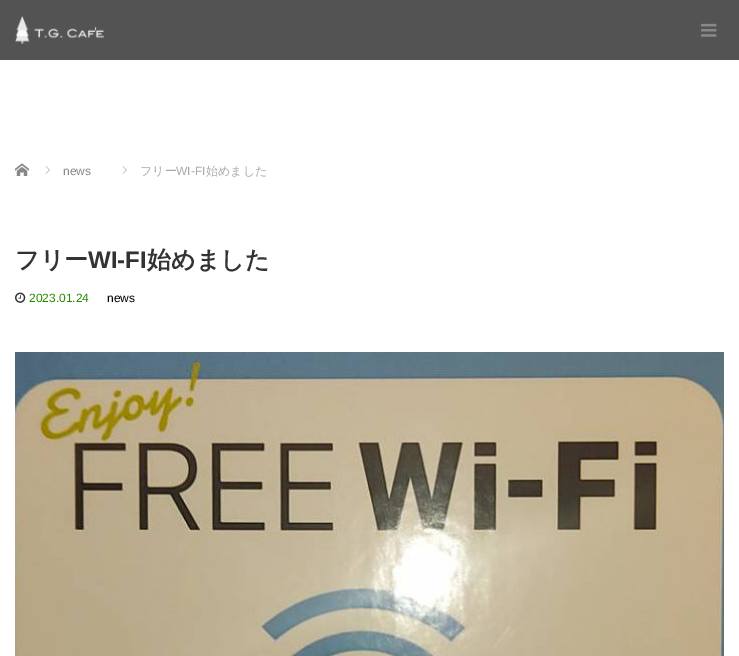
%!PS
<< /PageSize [739 656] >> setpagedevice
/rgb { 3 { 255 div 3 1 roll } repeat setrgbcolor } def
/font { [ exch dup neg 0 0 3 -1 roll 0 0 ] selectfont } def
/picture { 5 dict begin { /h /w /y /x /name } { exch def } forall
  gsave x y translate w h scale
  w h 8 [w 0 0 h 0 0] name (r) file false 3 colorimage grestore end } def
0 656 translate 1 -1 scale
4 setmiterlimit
255 255 255 rgb
0 0 739 656 rectfill
83 83 83 rgb
0 0 739 60 rectfill
(img/1.rgb) 15 16 89 28 picture
(img/2.rgb) 701 23 16 14 picture
(img/3.rgb) 15 163 14 13 picture
(img/4.rgb) 45 166 5 8 picture
(img/4.rgb) 122 166 5 8 picture
(img/5.rgb) 15 292 11 11 picture
(img/6.rgb) 15 352 709 304 picture
/LiberationSans-Regular 12 font
136 136 136 rgb
63 175 moveto (news) show
/WenQuanYiZenHei-Medium 12 font
170 170 170 rgb
140 175 moveto (フリー) show
/LiberationSans-Regular 12 font
176 175 moveto (WI-FI) show
/WenQuanYiZenHei-Medium 12 font
206 175 moveto (始めました) show
/WenQuanYiZenHei-Bold 24 font
51 51 51 rgb
15 268 moveto (フリー) show
/LiberationSans-Bold 24 font
88 268 moveto (WI-FI) show
/WenQuanYiZenHei-Bold 24 font
147 268 moveto (始めました) show
/LiberationSans-Regular 12 font
35 140 0 rgb
29 302 moveto (2023.01.24) show
0 0 0 rgb
107 302 moveto (news) show
showpage
